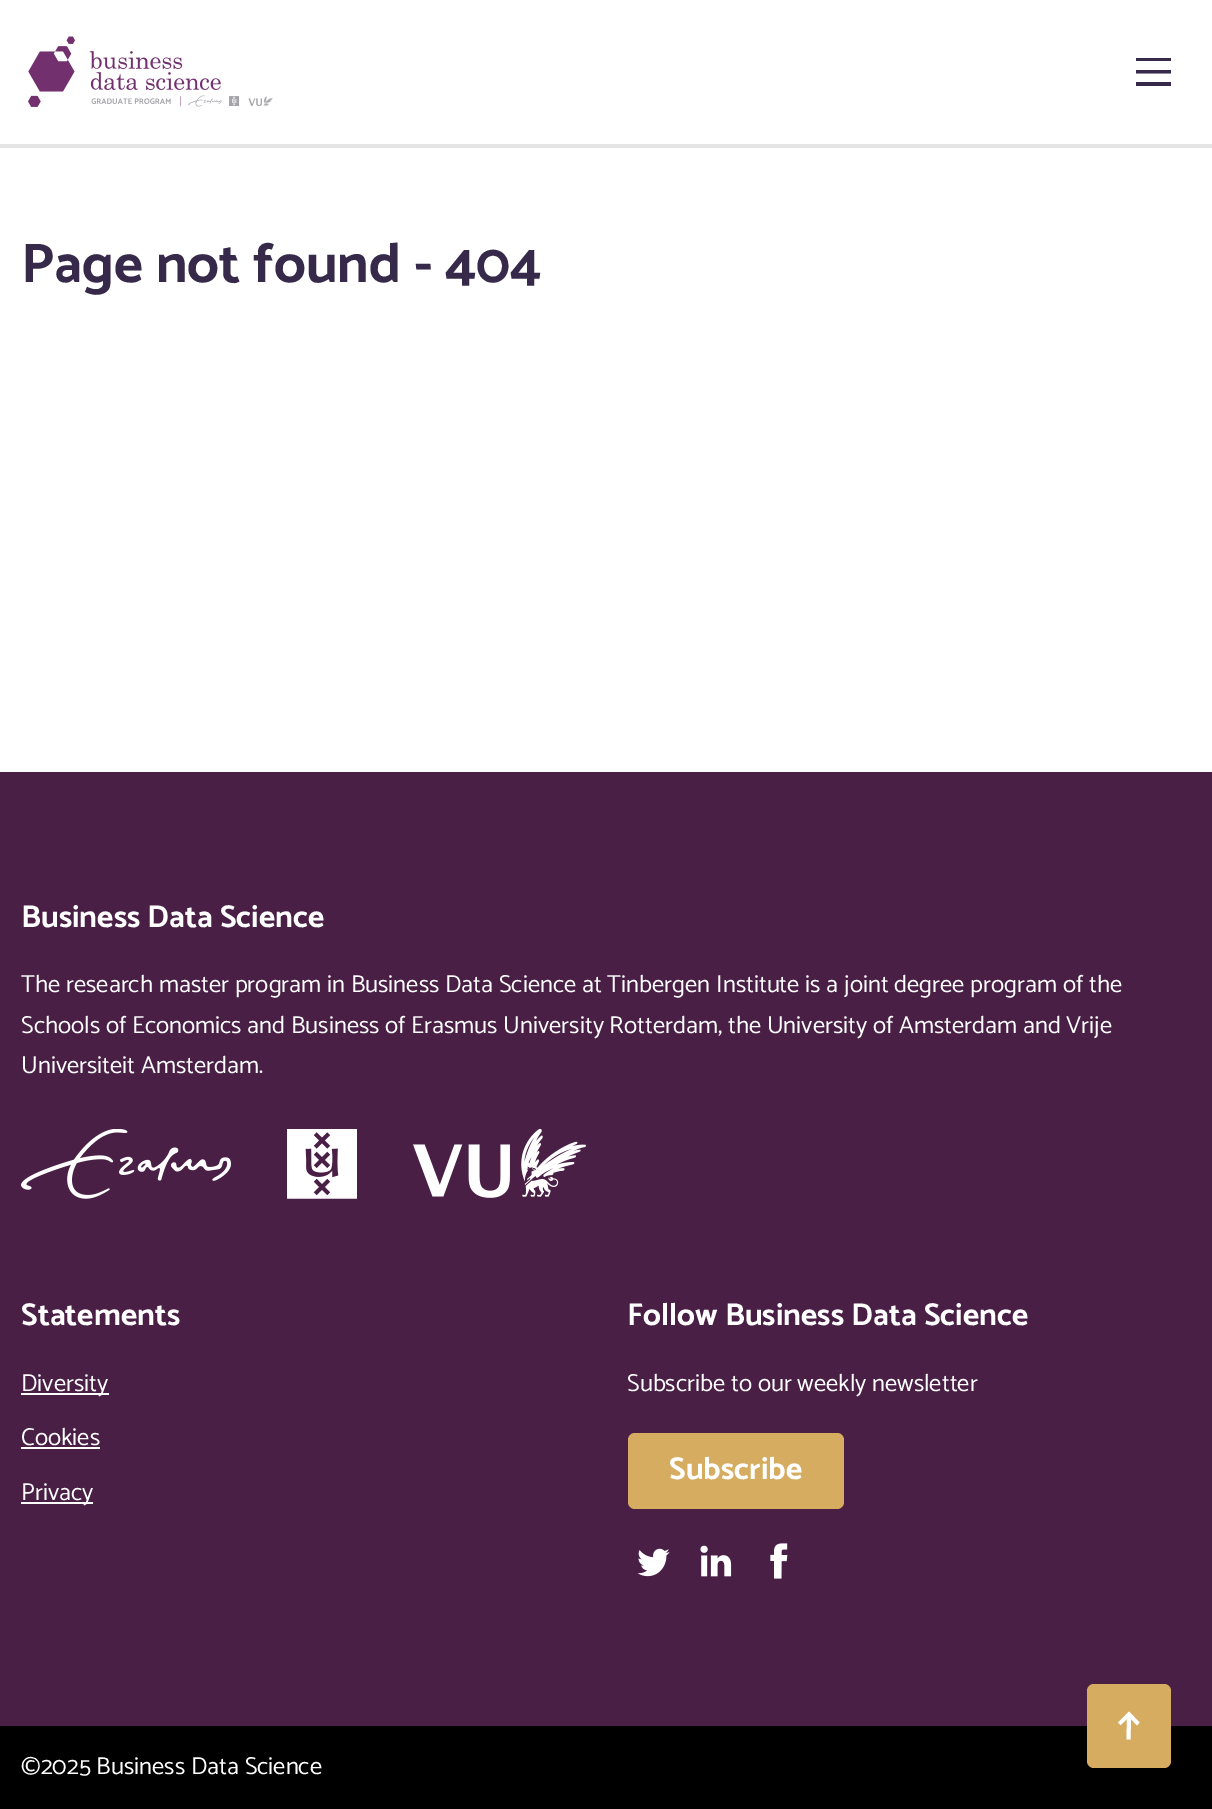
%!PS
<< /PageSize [1212 1809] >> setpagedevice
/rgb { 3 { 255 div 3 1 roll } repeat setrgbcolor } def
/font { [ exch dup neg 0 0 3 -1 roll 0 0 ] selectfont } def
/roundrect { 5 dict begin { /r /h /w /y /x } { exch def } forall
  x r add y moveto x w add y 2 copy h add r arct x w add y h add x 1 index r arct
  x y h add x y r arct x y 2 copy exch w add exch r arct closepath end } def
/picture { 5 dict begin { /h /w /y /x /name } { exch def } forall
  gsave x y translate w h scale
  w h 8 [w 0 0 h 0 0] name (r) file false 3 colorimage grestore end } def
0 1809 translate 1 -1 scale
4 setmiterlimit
255 255 255 rgb
0 0 1212 1809 rectfill
228 228 228 rgb
0 144 1212 4 rectfill
(img/1.rgb) 28 36 245 71 picture
54 41 73 rgb
1136 58 moveto 1171 58 lineto 1171 61 lineto 1136 61 lineto closepath 1136 70 moveto 1171 70 lineto 1171 73.5 lineto 1136 73.5 lineto closepath 1136 82 moveto 1171 82 lineto 1171 86 lineto 1136 86 lineto closepath fill
73 31 70 rgb
0 772 1212 954 rectfill
(img/2.rgb) 21 1129 210 70 picture
(img/3.rgb) 287 1129 70 70 picture
(img/4.rgb) 413 1129 173 69 picture
[
  [21 1393 88 2 255 255 255]
  [21 1447 79 2 255 255 255]
  [21 1502 72 2 255 255 255]
] { aload pop rgb rectfill } forall
214 173 96 rgb
628 1433 216 76 7 roundrect fill
(img/5.rgb) 637 1548 33 29 picture
(img/6.rgb) 700 1545 32 32 picture
(img/7.rgb) 770 1543 18 36 picture
0 0 0 rgb
0 1726 1212 83 rectfill
214 173 96 rgb
1087 1684 84 84 7 roundrect fill
255 255 255 rgb
1127 1719 moveto 1120.5 1725 lineto 1118 1722.5 lineto 1129 1711.5 lineto 1139.5 1722.5 lineto 1137 1725.5 lineto 1131 1719 lineto 1130.5 1739.5 lineto 1126.5 1739.5 lineto closepath fill
/Catamaran-Bold 56 font
54 41 73 rgb
21 282 moveto (Page not found - 404) show
/Catamaran-Bold 31.5 font
255 255 255 rgb
21 927 moveto (Business Data Science) show
/Catamaran-Regular 24.5 font
[
  [(The research master program in Business Data Science at Tinbergen Institute is a joint degree program of the) 21 992]
  [(Schools of Economics and Business of Erasmus University Rotterdam, the University of Amsterdam and Vrije) 21 1033]
  [(Universiteit Amsterdam.) 21 1073]
] { aload pop moveto show } forall
/Catamaran-Bold 31.5 font
21 1325 moveto (Statements) show
/Catamaran-Regular 24.5 font
[
  [(Diversity) 21 1391]
  [(Cookies) 21 1445]
  [(Privacy) 21 1500]
] { aload pop moveto show } forall
/Catamaran-Bold 31.5 font
627 1325 moveto (Follow Business Data Science) show
/Catamaran-Regular 24.5 font
627 1391 moveto (Subscribe to our weekly newsletter) show
/Catamaran-Bold 31.5 font
669 1479 moveto (Subscribe) show
/Catamaran-Regular 24.5 font
21 1774 moveto (©2025 Business Data Science) show
showpage
